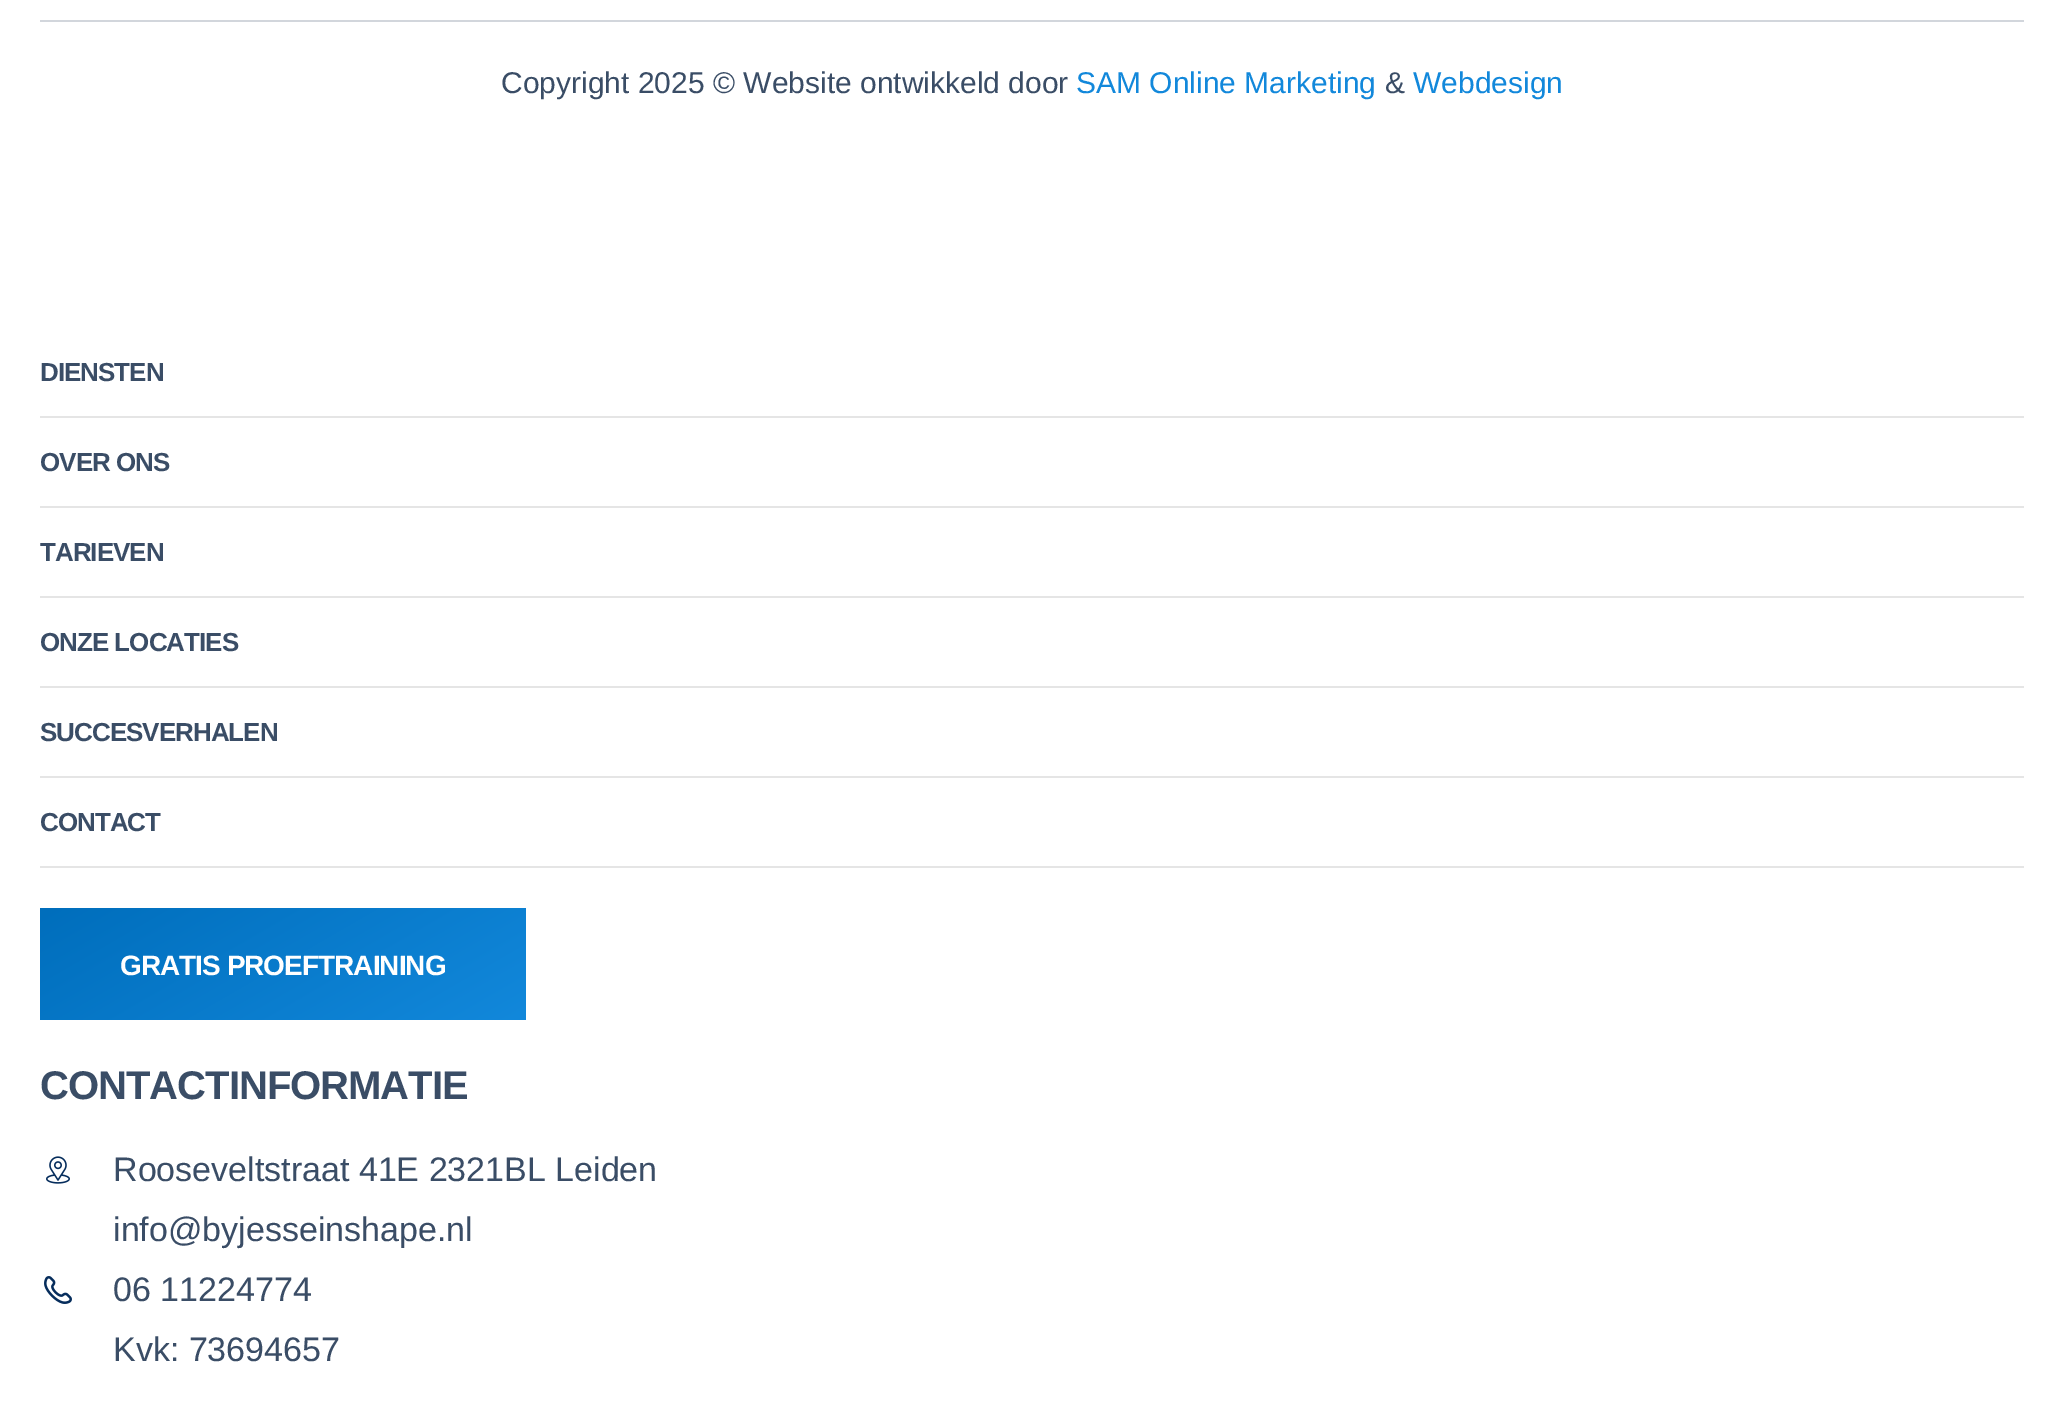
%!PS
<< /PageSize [2063 1409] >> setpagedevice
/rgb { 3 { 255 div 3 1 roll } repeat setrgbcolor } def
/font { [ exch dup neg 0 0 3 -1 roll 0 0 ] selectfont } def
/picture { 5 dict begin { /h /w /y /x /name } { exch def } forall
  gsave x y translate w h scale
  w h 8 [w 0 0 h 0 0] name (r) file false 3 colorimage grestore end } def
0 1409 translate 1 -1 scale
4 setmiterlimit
255 255 255 rgb
0 0 2063 1409 rectfill
[
  [40 20 1984 2 210 214 220]
  [40 416 1984 2 229 229 229]
  [40 506 1984 2 229 229 229]
  [40 596 1984 2 229 229 229]
  [40 686 1984 2 229 229 229]
  [40 776 1984 2 229 229 229]
  [40 866 1984 2 229 229 229]
] { aload pop rgb rectfill } forall
gsave 40 908 moveto 526 908 lineto 526 1020 lineto 40 1020 lineto closepath clip newpath
<< /ShadingType 2 /ColorSpace /DeviceRGB /Coords [198 817 368 1111] /Extend [true true] /Function << /FunctionType 2 /Domain [0 1] /C0 [0 0.431 0.737] /C1 [0.071 0.533 0.859] /N 1 >> >> shfill grestore
(img/1.rgb) 46 1156 24 28 picture
(img/2.rgb) 44 1276 28 28 picture
/LiberationSans-Regular 30 font
58 77 102 rgb
501 93 moveto (Copyright 2025 © Website ontwikkeld door) show
18 136 219 rgb
1076 93 moveto (SAM Online Marketing) show
58 77 102 rgb
1385 93 moveto (&) show
18 136 219 rgb
1413 93 moveto (Webdesign) show
/LiberationSans-Bold 26 font
58 77 102 rgb
40 381 moveto -1 0 (DIENSTEN) ashow
40 471 moveto -1 0 (OVER ONS) ashow
40 561 moveto -1 0 (TARIEVEN) ashow
40 651 moveto -1 0 (ONZE LOCATIES) ashow
40 741 moveto -1 0 (SUCCESVERHALEN) ashow
40 831 moveto -1 0 (CONTACT) ashow
/LiberationSans-Bold 28 font
255 255 255 rgb
120 975 moveto -1 0 (GRATIS PROEFTRAINING) ashow
/LiberationSans-Bold 40 font
58 77 102 rgb
40 1099 moveto -1 0 (CONTACTINFORMATIE) ashow
/LiberationSans-Regular 34 font
[
  [(Rooseveltstraat 41E 2321BL Leiden) 113 1181]
  [(info@byjesseinshape.nl) 113 1241]
  [(06 11224774) 113 1301]
  [(Kvk: 73694657) 113 1361]
] { aload pop moveto show } forall
showpage
